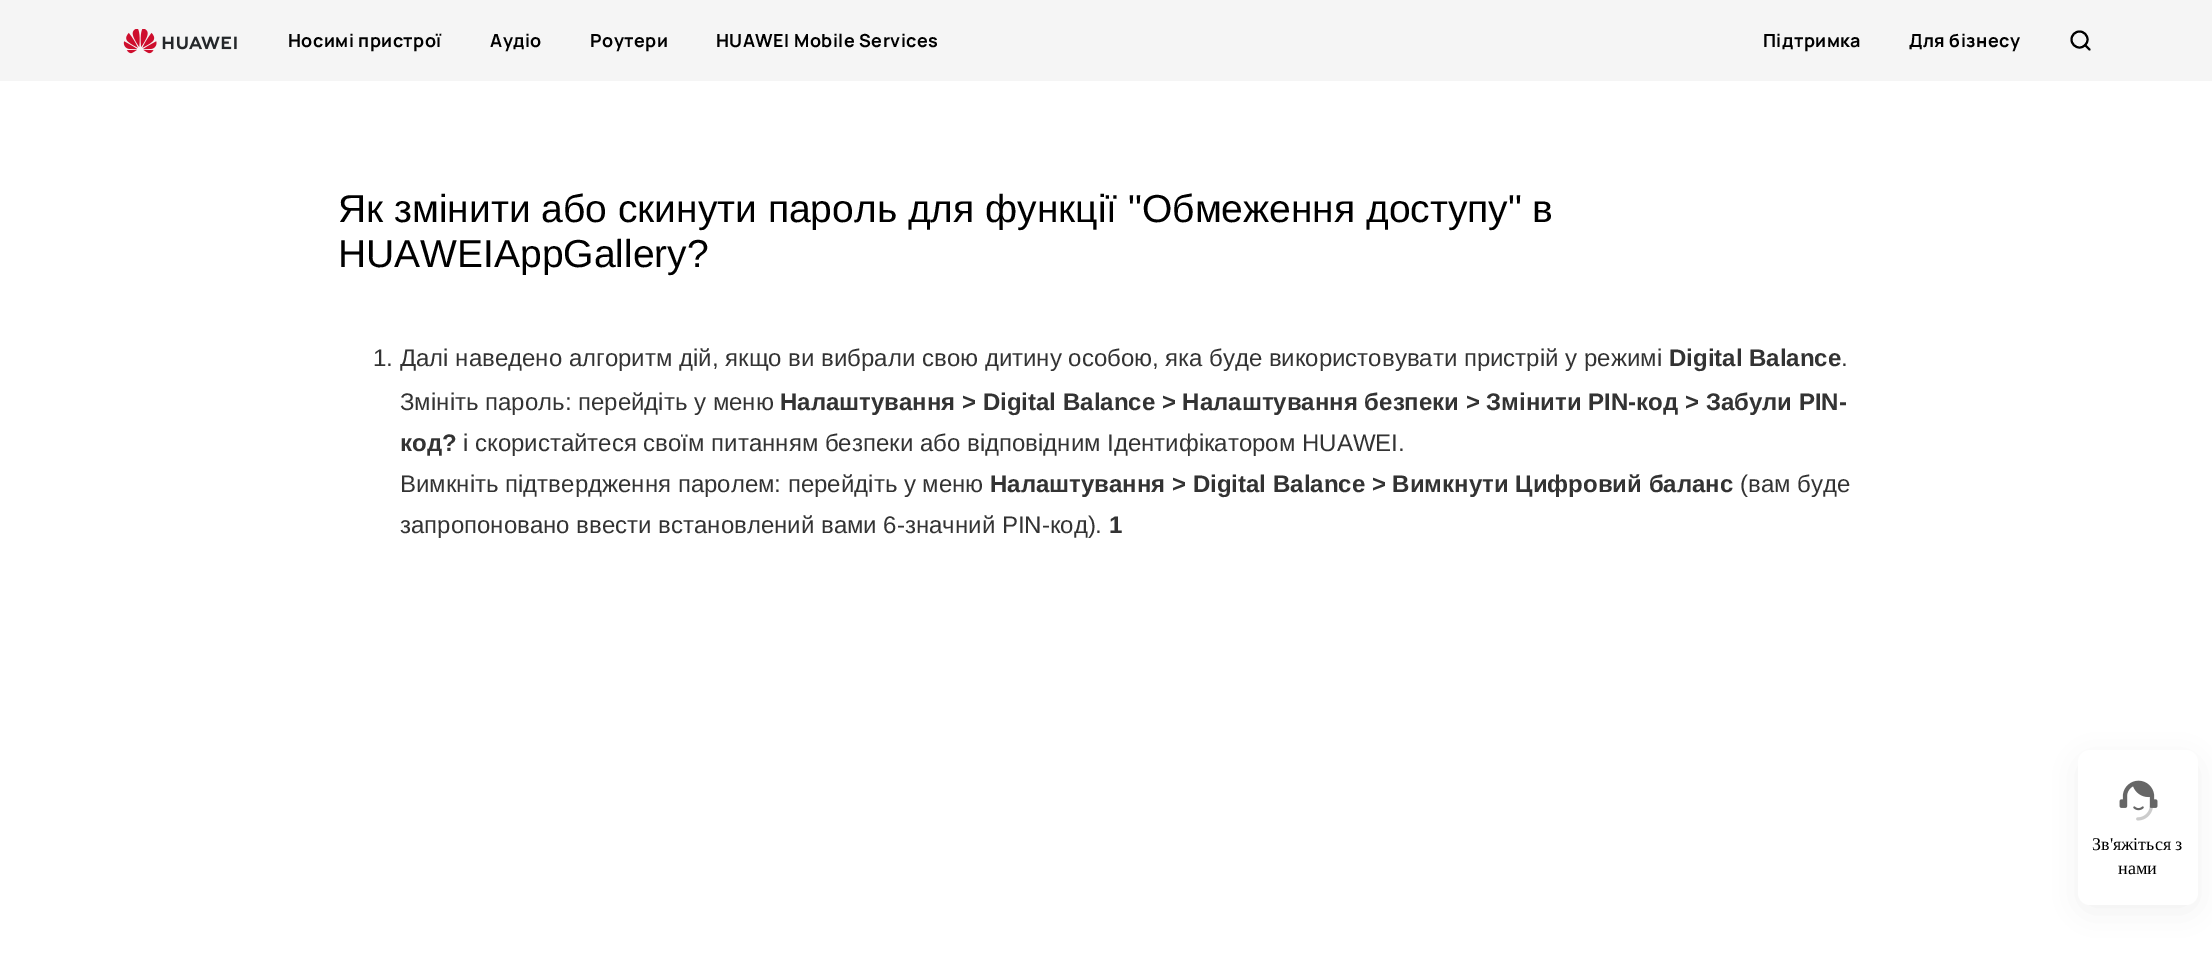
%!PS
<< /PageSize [2212 979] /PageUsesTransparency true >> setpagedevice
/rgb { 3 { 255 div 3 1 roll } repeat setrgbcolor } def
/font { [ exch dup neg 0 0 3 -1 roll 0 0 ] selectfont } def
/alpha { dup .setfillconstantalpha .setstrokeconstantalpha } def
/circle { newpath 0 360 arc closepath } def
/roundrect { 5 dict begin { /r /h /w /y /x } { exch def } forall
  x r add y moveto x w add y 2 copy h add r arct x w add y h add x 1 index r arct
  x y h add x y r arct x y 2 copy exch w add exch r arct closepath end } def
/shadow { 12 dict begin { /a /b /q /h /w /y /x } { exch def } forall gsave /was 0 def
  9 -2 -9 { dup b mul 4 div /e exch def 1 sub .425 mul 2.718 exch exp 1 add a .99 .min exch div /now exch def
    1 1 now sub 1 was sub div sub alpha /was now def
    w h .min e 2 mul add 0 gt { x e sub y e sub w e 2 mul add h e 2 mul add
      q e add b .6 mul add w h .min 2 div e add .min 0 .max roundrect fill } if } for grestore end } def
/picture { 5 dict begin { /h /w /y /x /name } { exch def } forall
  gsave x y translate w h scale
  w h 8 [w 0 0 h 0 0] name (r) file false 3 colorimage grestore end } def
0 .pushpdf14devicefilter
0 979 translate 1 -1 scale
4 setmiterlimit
255 255 255 rgb
0 0 2212 979 rectfill
245 245 245 rgb
0 0 2212 81 rectfill
(img/1.rgb) 123 29 114 25 picture
0 0 0 rgb
2 setlinewidth
2079.5 39.5 8 circle stroke
1 setlinecap
1 setlinejoin
2089.5 49.5 moveto 2085 45 lineto stroke
2078 758 120 154 12 15 0.05 shadow
255 255 255 rgb
2078 750 120 155 12 roundrect fill
(img/2.rgb) 2119 780 39 41 picture
/Manrope-Bold 18 font
0 0 0 rgb
288 47 moveto 0.45 0 (Носимі пристрої) ashow
490 47 moveto 0.45 0 (Аудіо) ashow
590 47 moveto 0.45 0 (Роутери) ashow
716 47 moveto 0.45 0 (HUAWEI Mobile Services) ashow
1763 47 moveto 0.45 0 (Підтримка) ashow
1909 47 moveto 0.45 0 (Для бізнесу) ashow
/LiberationSans-Regular 39 font
338 222 moveto (Як змінити або скинути пароль для функції "Обмеження доступу" в) show
338 267 moveto (HUAWEIAppGallery?) show
/LiberationSans-Regular 24 font
51 51 51 rgb
373 366 moveto (1. Далі наведено алгоритм дій, якщо ви вибрали свою дитину особою, яка буде використовувати пристрій у режимі) show
/LiberationSans-Bold 24 font
1669 366 moveto (Digital Balance) show
/LiberationSans-Regular 24 font
1841 366 moveto (.) show
400 410 moveto (Змініть пароль: перейдіть у меню) show
/LiberationSans-Bold 24 font
780 410 moveto (Налаштування > Digital Balance > Налаштування безпеки > Змінити PIN-код > Забули PIN-) show
400 451 moveto (код?) show
/LiberationSans-Regular 24 font
463 451 moveto (і скористайтеся своїм питанням безпеки або відповідним Ідентифікатором HUAWEI.) show
400 492 moveto (Вимкніть підтвердження паролем: перейдіть у меню) show
/LiberationSans-Bold 24 font
990 492 moveto (Налаштування > Digital Balance > Вимкнути Цифровий баланс) show
/LiberationSans-Regular 24 font
1740 492 moveto (\(вам буде) show
400 533 moveto (запропоновано ввести встановлений вами 6-значний PIN-код\).) show
/LiberationSans-Bold 24 font
1109 533 moveto (1) show
/LiberationSerif-Regular 18 font
0 0 0 rgb
2092 850 moveto (Зв'яжіться з) show
2118 874 moveto (нами) show
.poppdf14devicefilter showpage
